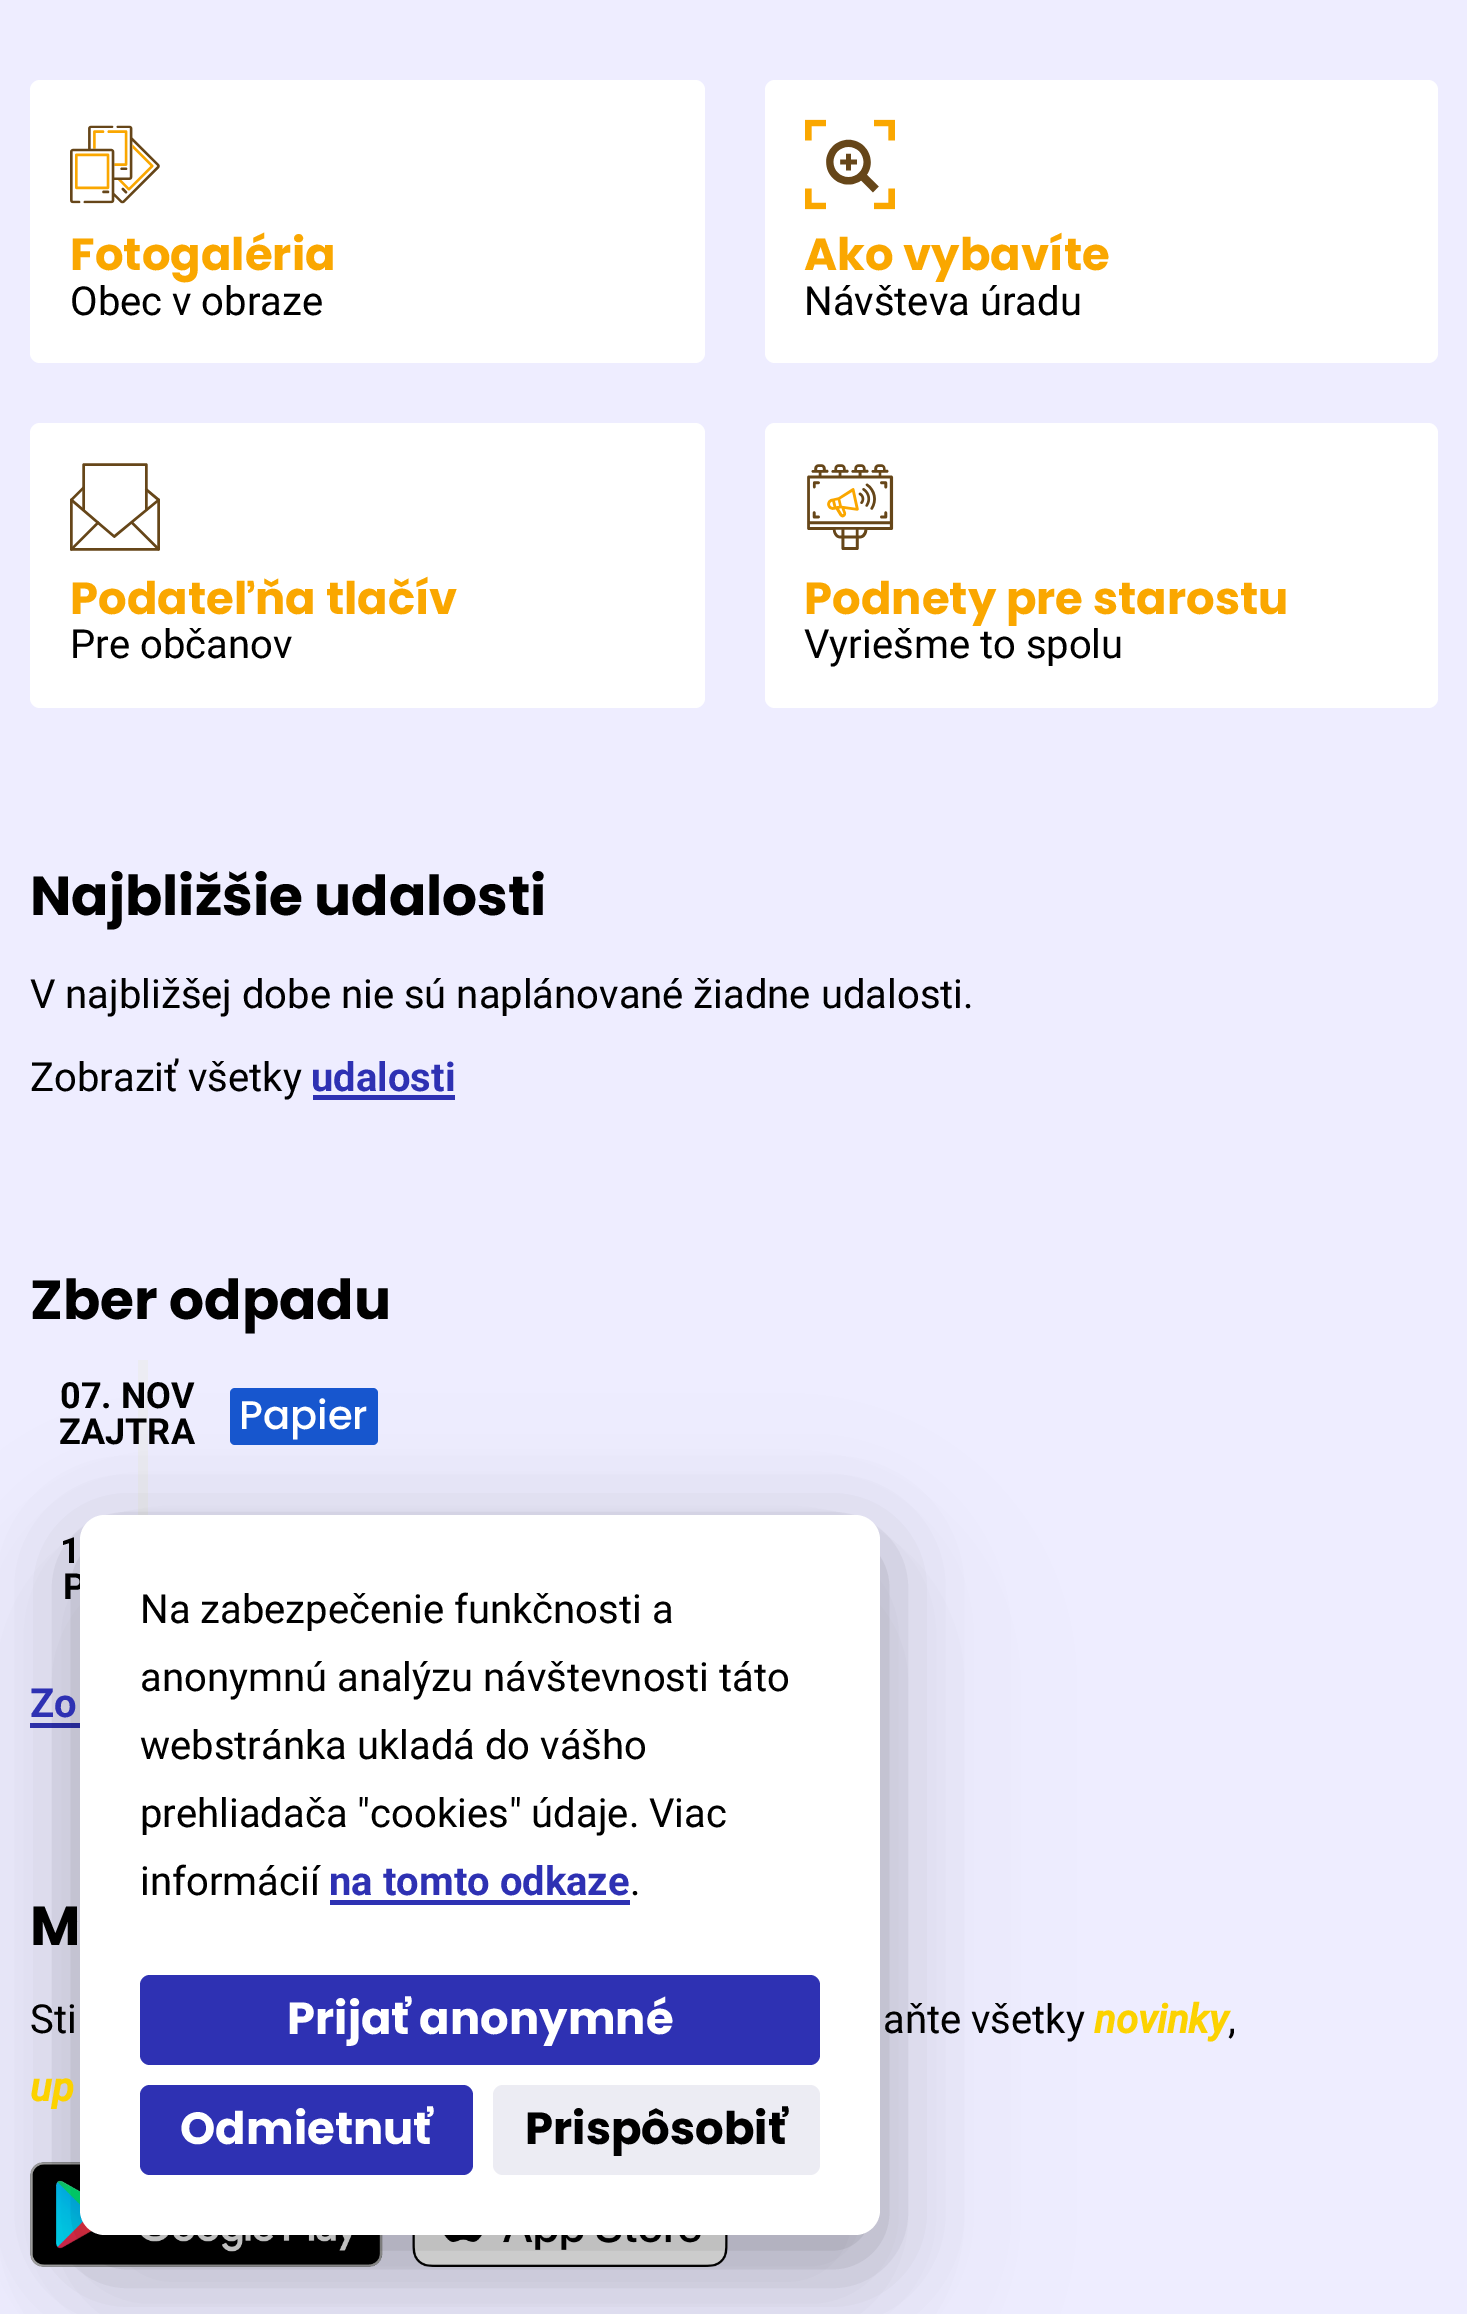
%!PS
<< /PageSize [1467 2314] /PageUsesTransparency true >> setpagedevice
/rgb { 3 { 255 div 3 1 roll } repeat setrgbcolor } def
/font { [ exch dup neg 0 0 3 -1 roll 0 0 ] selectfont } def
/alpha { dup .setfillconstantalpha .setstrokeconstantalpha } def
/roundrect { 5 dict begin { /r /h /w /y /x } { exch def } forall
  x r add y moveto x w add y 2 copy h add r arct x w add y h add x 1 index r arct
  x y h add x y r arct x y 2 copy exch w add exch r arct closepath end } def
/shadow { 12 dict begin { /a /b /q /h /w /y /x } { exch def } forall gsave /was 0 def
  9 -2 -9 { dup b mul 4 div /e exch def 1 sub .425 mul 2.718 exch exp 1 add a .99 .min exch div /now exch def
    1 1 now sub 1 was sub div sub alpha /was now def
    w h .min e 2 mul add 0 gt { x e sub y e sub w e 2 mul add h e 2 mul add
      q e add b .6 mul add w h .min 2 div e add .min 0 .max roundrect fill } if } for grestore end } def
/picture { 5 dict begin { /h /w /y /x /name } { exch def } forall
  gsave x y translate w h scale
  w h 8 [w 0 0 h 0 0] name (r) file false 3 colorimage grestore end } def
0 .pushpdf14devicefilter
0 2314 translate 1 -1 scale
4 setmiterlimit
238 237 255 rgb
0 0 1467 2314 rectfill
255 255 255 rgb
30 80 675 283 10 roundrect fill
(img/1.rgb) 70 125 90 79 picture
765 80 673 283 10 roundrect fill
(img/2.rgb) 805 119 90 91 picture
30 423 675 285 10 roundrect fill
(img/3.rgb) 70 463 90 88 picture
765 423 673 285 10 roundrect fill
(img/4.rgb) 807 464 87 86 picture
46 49 179 rgb
313 1095 142 5 rectfill
236 236 243 rgb
138 1360 10 155 rectfill
23 86 207 rgb
230 1388 148 57 5 roundrect fill
46 49 179 rgb
30 1723 50 5 rectfill
(img/5.rgb) 30 2162 353 105 picture
(img/6.rgb) 412 2235 316 32 picture
0 0 0 rgb
80 1590 800 720 25 112.5 0.05 shadow
80 1565 800 720 25 75 0.05 shadow
80 1540 800 720 25 37.5 0.25 shadow
/Poppins-Bold 45 font
250 167 0 rgb
70 270 moveto (Fotogaléria) show
/Roboto-Regular 40 font
0 0 0 rgb
70 315 moveto (Obec v obraze) show
/Poppins-Bold 45 font
250 167 0 rgb
804 270 moveto (Ako vybavíte) show
/Roboto-Regular 40 font
0 0 0 rgb
804 315 moveto (Návšteva úradu) show
/Poppins-Bold 45 font
250 167 0 rgb
70 614 moveto (Podateľňa tlačív) show
/Roboto-Regular 40 font
0 0 0 rgb
70 658 moveto (Pre občanov) show
/Poppins-Bold 45 font
250 167 0 rgb
804 614 moveto (Podnety pre starostu) show
/Roboto-Regular 40 font
0 0 0 rgb
804 658 moveto (Vyriešme to spolu) show
/Poppins-Bold 55 font
30 915 moveto (Najbližšie udalosti) show
/Roboto-Regular 40 font
30 1008 moveto (V najbližšej dobe nie sú naplánované žiadne udalosti.) show
30 1091 moveto (Zobraziť všetky) show
/Roboto-Bold 40 font
46 49 179 rgb
311 1091 moveto (udalosti) show
/Poppins-Bold 55 font
0 0 0 rgb
30 1319 moveto (Zber odpadu) show
/Roboto-Bold 36 font
60 1408 moveto (07. NOV) show
59 1444 moveto (ZAJTRA) show
/Poppins-Medium 40 font
255 255 255 rgb
239 1429 moveto (Papier) show
/Roboto-Bold 36 font
0 0 0 rgb
60 1563 moveto (1) show
63 1599 moveto (P) show
/Roboto-Bold 40 font
46 49 179 rgb
30 1717 moveto (Zo) show
/Poppins-Bold 55 font
0 0 0 rgb
30 1945 moveto (M) show
/Roboto-Regular 40 font
30 2033 moveto (Sti) show
883 2033 moveto (aňte všetky) show
/Roboto-BoldItalic 40 font
252 210 0 rgb
1094 2033 moveto (novinky) show
/Roboto-Regular 40 font
0 0 0 rgb
1228 2033 moveto (,) show
/Roboto-BoldItalic 40 font
252 210 0 rgb
30 2101 moveto (up) show
255 255 255 rgb
80 1515 800 720 25 roundrect fill
/Roboto-Regular 40 font
0 0 0 rgb
[
  [(Na zabezpečenie funkčnosti a) 140 1623]
  [(anonymnú analýzu návštevnosti táto) 140 1691]
  [(webstránka ukladá do vášho) 140 1759]
  [(prehliadača "cookies" údaje. Viac) 140 1827]
  [(informácií) 140 1895]
] { aload pop moveto show } forall
/Roboto-Bold 40 font
46 49 179 rgb
329 1895 moveto (na tomto odkaze) show
330 1900 300 5 rectfill
/Roboto-Regular 40 font
0 0 0 rgb
630 1895 moveto (.) show
46 49 179 rgb
140 1975 680 90 10 roundrect fill
/Poppins-Bold 45 font
255 255 255 rgb
287 2034 moveto (Prijať anonymné) show
46 49 179 rgb
140 2085 333 90 10 roundrect fill
255 255 255 rgb
180 2144 moveto (Odmietnuť) show
236 236 243 rgb
493 2085 327 90 10 roundrect fill
0 0 0 rgb
525 2144 moveto (Prispôsobiť) show
.poppdf14devicefilter showpage
